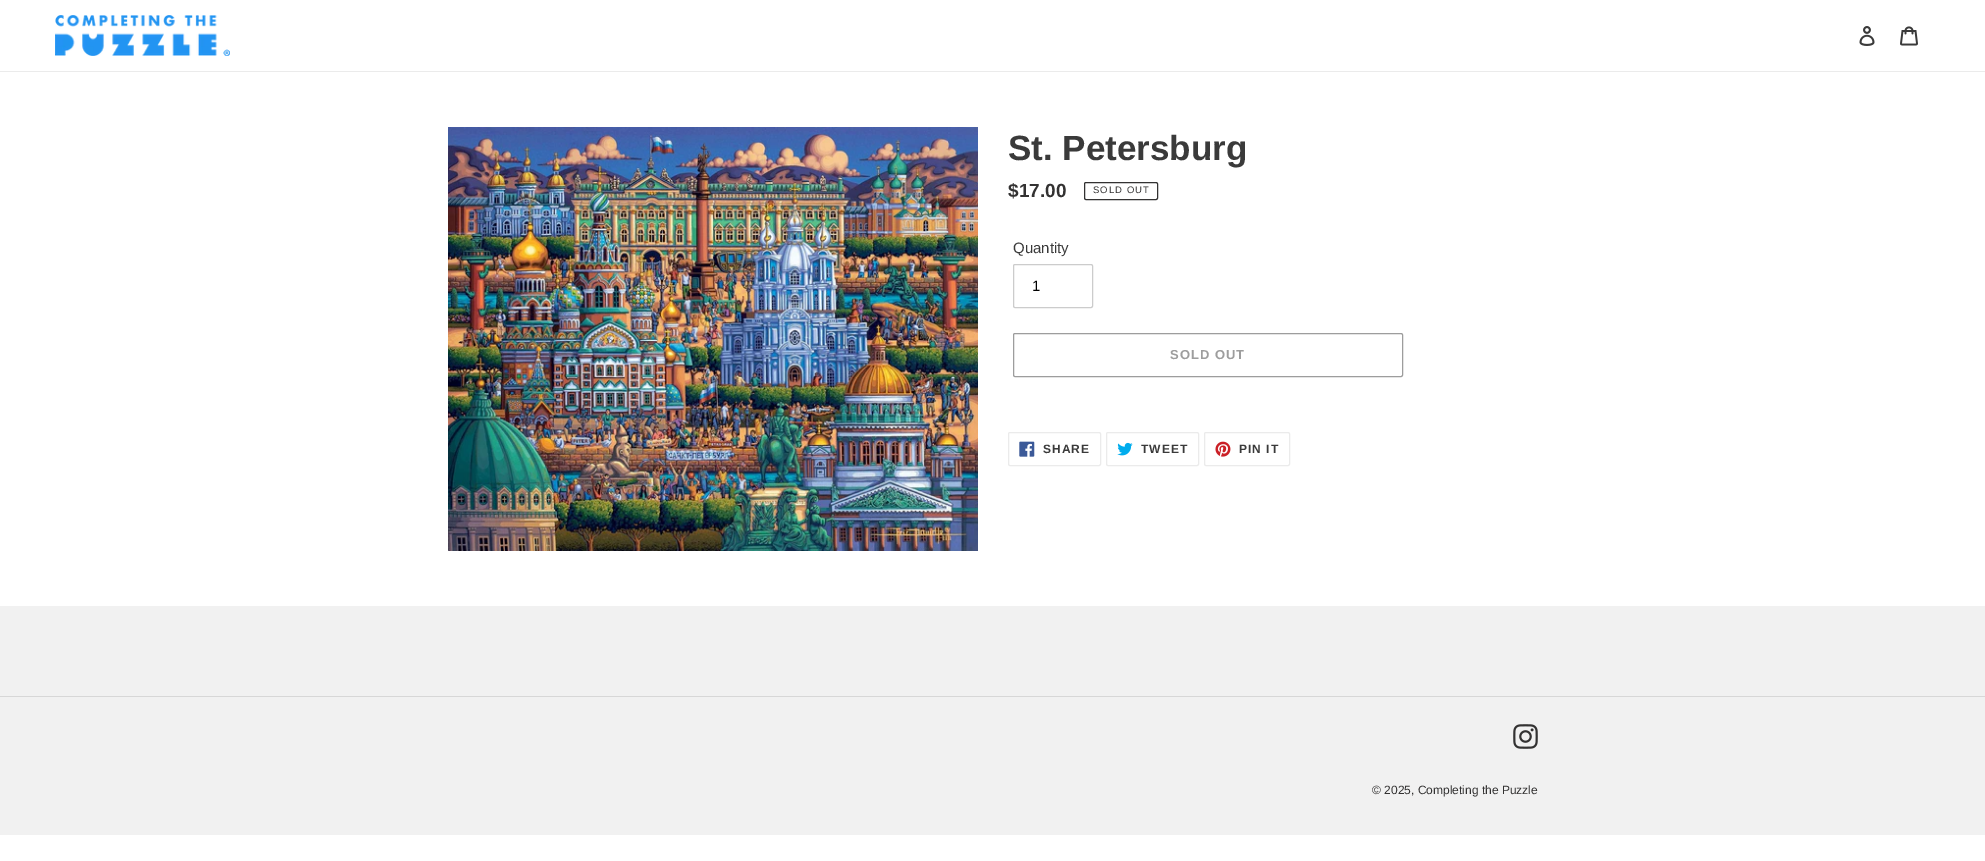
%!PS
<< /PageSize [1985 861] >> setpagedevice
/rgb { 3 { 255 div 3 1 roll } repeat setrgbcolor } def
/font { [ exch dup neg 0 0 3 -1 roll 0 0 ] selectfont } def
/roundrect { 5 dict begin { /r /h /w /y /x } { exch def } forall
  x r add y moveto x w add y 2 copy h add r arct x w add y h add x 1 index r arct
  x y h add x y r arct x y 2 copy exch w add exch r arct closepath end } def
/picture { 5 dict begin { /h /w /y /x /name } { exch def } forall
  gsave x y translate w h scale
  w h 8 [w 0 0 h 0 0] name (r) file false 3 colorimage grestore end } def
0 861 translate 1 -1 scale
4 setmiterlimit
255 255 255 rgb
0 0 1985 861 rectfill
235 235 235 rgb
0 71 1985 1 rectfill
(img/1.rgb) 55 15 175 41 picture
(img/2.rgb) 1859 26 16 20 picture
(img/3.rgb) 1900 26 18 20 picture
(img/4.rgb) 448 127 530 424 picture
51 50 50 rgb
1084.5 182.5 73 17 1.5 roundrect stroke
204 204 204 rgb
1013.5 264.5 79 43 1.5 roundrect stroke
157 157 157 rgb
1013.5 333.5 389 43 1.5 roundrect stroke
235 235 235 rgb
1008.5 432.5 92 33 1.5 roundrect stroke
(img/5.rgb) 1019 441 16 16 picture
1106.5 432.5 92 33 1.5 roundrect stroke
(img/6.rgb) 1117 442 16 14 picture
1204.5 432.5 85 33 1.5 roundrect stroke
(img/7.rgb) 1215 441 16 16 picture
241 241 241 rgb
0 606 1985 229 rectfill
215 215 215 rgb
0 696 1985 1 rectfill
(img/8.rgb) 1513 724 25 25 picture
/LiberationSans-Bold 35 font
58 58 58 rgb
1008 160 moveto (St. Petersburg) show
/LiberationSans-Bold 19 font
51 50 50 rgb
1008 197 moveto ($17.00) show
/LiberationSans-Regular 9.5 font
1093 193 moveto 1 0 (SOLD OUT) ashow
/LiberationSans-Regular 15 font
58 58 58 rgb
1013 253 moveto (Quantity) show
0 0 0 rgb
1032 291 moveto (1) show
/LiberationSans-Bold 13 font
157 157 157 rgb
1170 359 moveto 1 0 (SOLD OUT) ashow
/LiberationSans-Bold 12 font
58 58 58 rgb
1043 453 moveto 1 0 (SHARE) ashow
1141 453 moveto 1 0 (TWEET) ashow
1239 453 moveto 1 0 (PIN IT) ashow
/LiberationSans-Regular 12 font
51 50 50 rgb
1372 794 moveto (© 2025, Completing the Puzzle) show
showpage
